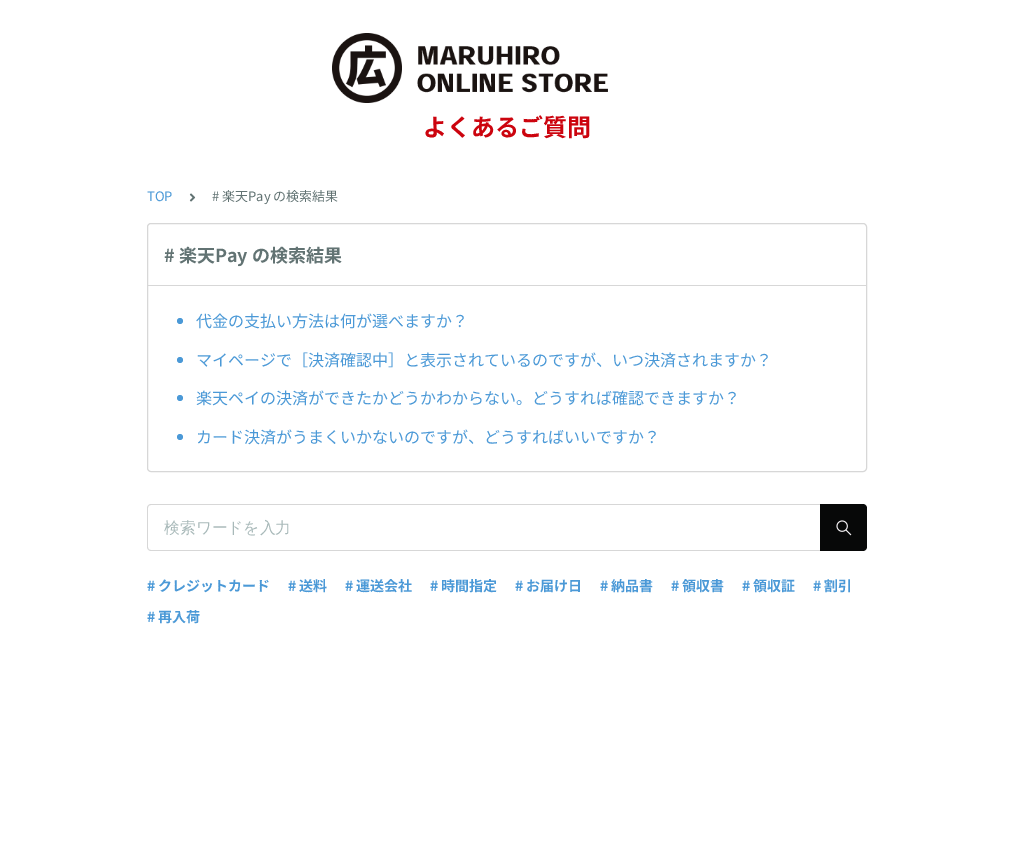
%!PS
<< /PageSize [1014 866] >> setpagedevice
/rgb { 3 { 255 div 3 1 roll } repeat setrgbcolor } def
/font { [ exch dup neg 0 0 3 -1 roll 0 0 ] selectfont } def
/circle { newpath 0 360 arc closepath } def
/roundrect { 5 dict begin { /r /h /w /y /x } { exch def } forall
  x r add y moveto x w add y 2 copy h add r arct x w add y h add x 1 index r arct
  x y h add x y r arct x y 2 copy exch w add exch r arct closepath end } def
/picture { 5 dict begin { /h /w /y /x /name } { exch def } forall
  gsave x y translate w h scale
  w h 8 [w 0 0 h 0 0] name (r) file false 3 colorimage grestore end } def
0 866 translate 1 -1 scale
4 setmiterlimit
255 255 255 rgb
0 0 1014 866 rectfill
(img/1.rgb) 332 33 276 70 picture
(img/2.rgb) 189 193 7 9 picture
215 215 215 rgb
147.5 223.5 719 248 3.5 roundrect stroke
148 285 718 1 rectfill
75 153 215 rgb
180 321 3 circle fill
180 360 3 circle fill
180 398 3 circle fill
180 437 3 circle fill
215 215 215 rgb
151 504 moveto 820 504 lineto 820 551 lineto 151 551 lineto 149 551 147 549 147 547 curveto 147 508 lineto 147 506 149 504 151 504 curveto closepath 151 505 moveto 820 505 lineto 820 550 lineto 151 550 lineto 149 550 148 549 148 547 curveto 148 508 lineto 148 506 149 505 151 505 curveto closepath eofill
7 8 8 rgb
820 504 moveto 863 504 lineto 865 504 867 506 867 508 curveto 867 547 lineto 867 549 865 551 863 551 curveto 820 551 lineto closepath fill
(img/3.rgb) 836 520 16 16 picture
/NotoSansJP-Bold 24 font
204 4 14 rgb
423 136 moveto (よくあるご質問) show
/NotoSansJP-Regular 13 font
75 153 215 rgb
147 201 moveto (TOP) show
98 115 115 rgb
212 201 moveto (# 楽天Pay の検索結果) show
/NotoSansJP-Bold 18 font
164 262 moveto (# 楽天Pay の検索結果) show
/NotoSansJP-Regular 16 font
75 153 215 rgb
[
  [(代金の支払い方法は何が選べますか？) 196 327]
  [(マイページで［決済確認中］と表示されているのですが、いつ決済されますか？) 196 366]
  [(楽天ペイの決済ができたかどうかわからない。どうすれば確認できますか？) 196 404]
  [(カード決済がうまくいかないのですが、どうすればいいですか？) 196 443]
] { aload pop moveto show } forall
/WenQuanYiZenHei-Medium 15.75 font
168 185 185 rgb
164 533 moveto (検索ワードを入力) show
/NotoSansJP-Bold 14 font
75 153 215 rgb
[
  [(# クレジットカード) 147 591]
  [(# 送料) 288 591]
  [(# 運送会社) 345 591]
  [(# 時間指定) 430 591]
  [(# お届け日) 515 591]
  [(# 納品書) 600 591]
  [(# 領収書) 671 591]
  [(# 領収証) 742 591]
  [(# 割引) 813 591]
  [(# 再入荷) 147 622]
] { aload pop moveto show } forall
showpage
